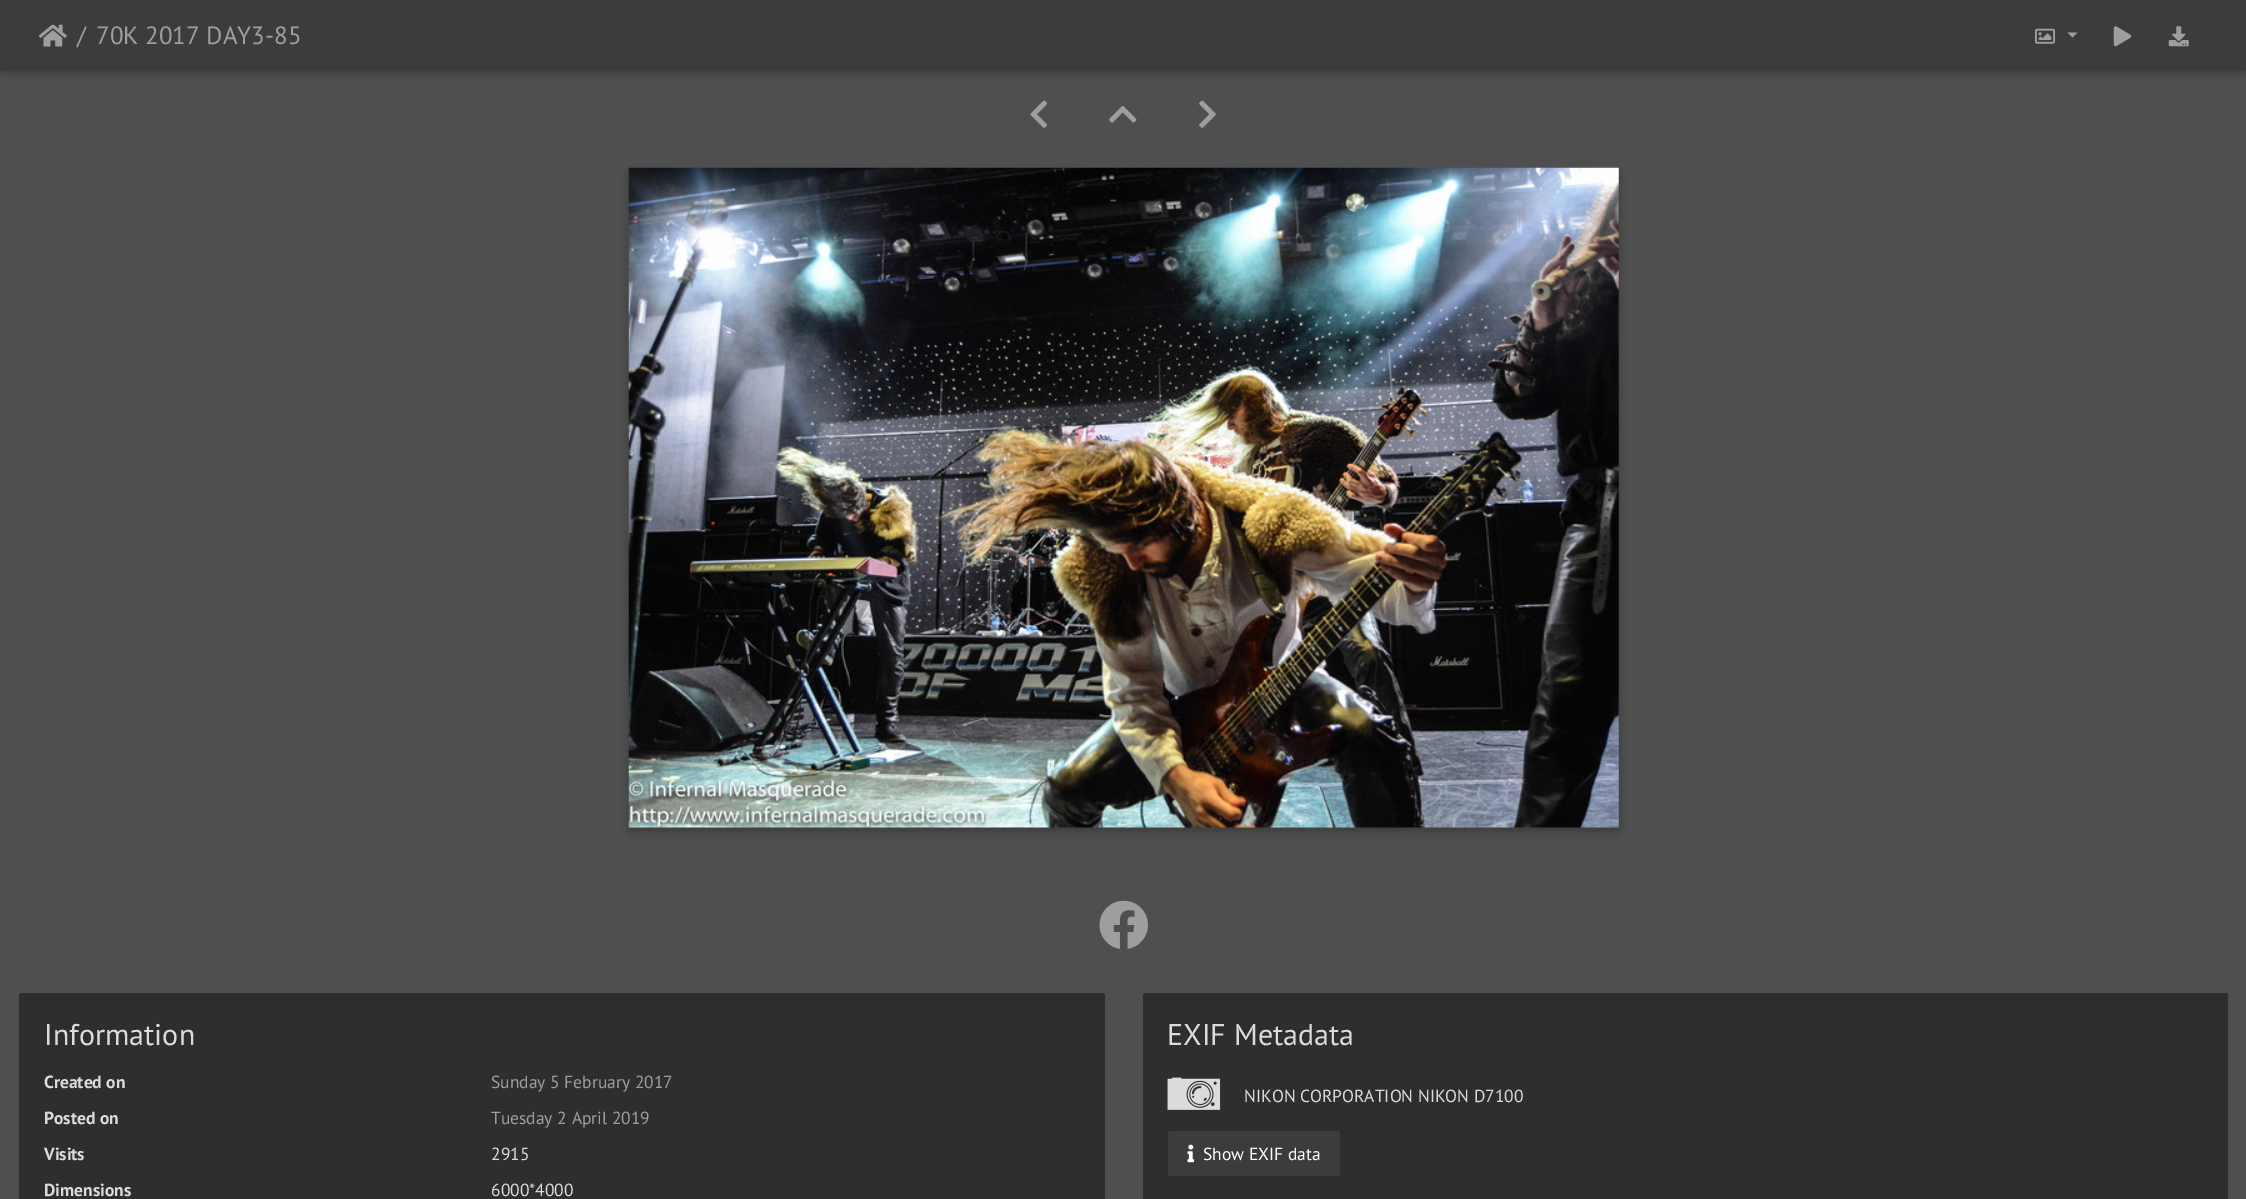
%!PS
<< /PageSize [2246 1199] /PageUsesTransparency true >> setpagedevice
/rgb { 3 { 255 div 3 1 roll } repeat setrgbcolor } def
/font { [ exch dup neg 0 0 3 -1 roll 0 0 ] selectfont } def
/alpha { dup .setfillconstantalpha .setstrokeconstantalpha } def
/roundrect { 5 dict begin { /r /h /w /y /x } { exch def } forall
  x r add y moveto x w add y 2 copy h add r arct x w add y h add x 1 index r arct
  x y h add x y r arct x y 2 copy exch w add exch r arct closepath end } def
/shadow { 12 dict begin { /a /b /q /h /w /y /x } { exch def } forall gsave /was 0 def
  9 -2 -9 { dup b mul 4 div /e exch def 1 sub .425 mul 2.718 exch exp 1 add a .99 .min exch div /now exch def
    1 1 now sub 1 was sub div sub alpha /was now def
    w h .min e 2 mul add 0 gt { x e sub y e sub w e 2 mul add h e 2 mul add
      q e add b .6 mul add w h .min 2 div e add .min 0 .max roundrect fill } if } for grestore end } def
/picture { 5 dict begin { /h /w /y /x /name } { exch def } forall
  gsave x y translate w h scale
  w h 8 [w 0 0 h 0 0] name (r) file false 3 colorimage grestore end } def
0 .pushpdf14devicefilter
0 1199 translate 1 -1 scale
4 setmiterlimit
79 79 79 rgb
0 0 2246 1199 rectfill
0 0 0 rgb
1 5 2244 69 0 3 0.2 shadow
60 60 60 rgb
0 0 2246 71 rectfill
(img/1.rgb) 39 24 28 23 picture
(img/2.rgb) 2035 28 20 16 picture
158 158 158 rgb
2067.5 32.5 moveto 2077.5 32.5 lineto 2072.5 37.5 lineto closepath fill
(img/3.rgb) 2113 26 19 21 picture
(img/4.rgb) 2168 26 21 21 picture
(img/5.rgb) 1030 100 17 28 picture
(img/6.rgb) 1109 106 28 17 picture
(img/7.rgb) 1199 100 17 28 picture
gsave
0 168 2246 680 rectclip
0 0 0 rgb
629 171 990 660 0 4 0.23 shadow
grestore
(img/8.rgb) 628 167 991 661 picture
(img/9.rgb) 1099 900 49 49 picture
0 0 0 rgb
19 995 1086 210 2.5 1 0.14 shadow
46 46 46 rgb
19 993 1086 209 2.5 roundrect fill
0 0 0 rgb
1143 995 1085 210 2.5 1 0.14 shadow
46 46 46 rgb
1143 993 1085 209 2.5 roundrect fill
(img/10.rgb) 1167 1077 54 33 picture
60 60 60 rgb
1168 1131 172 45 2.5 roundrect fill
(img/11.rgb) 1187 1144 8 19 picture
/PTSans-Regular 25 font
158 158 158 rgb
77 44 moveto (/) show
96 44 moveto (70K 2017 DAY3-85) show
/PTSans-Regular 30 font
219 219 219 rgb
44 1045 moveto (Information) show
/PTSans-Bold 17.5 font
44 1088 moveto (Created on) show
/PTSans-Regular 17.5 font
158 158 158 rgb
491 1088 moveto (Sunday 5 February 2017) show
/PTSans-Bold 17.5 font
219 219 219 rgb
44 1124 moveto (Posted on) show
/PTSans-Regular 17.5 font
158 158 158 rgb
491 1124 moveto (Tuesday 2 April 2019) show
/PTSans-Bold 17.5 font
219 219 219 rgb
44 1160 moveto (Visits) show
/PTSans-Regular 17.5 font
491 1160 moveto (2915) show
/PTSans-Bold 17.5 font
44 1196 moveto (Dimensions) show
/PTSans-Regular 17.5 font
491 1196 moveto (6000*4000) show
/PTSans-Regular 30 font
1167 1045 moveto (EXIF Metadata) show
/PTSans-Regular 17.5 font
1244 1102 moveto (NIKON CORPORATION NIKON D7100) show
255 255 255 rgb
1203 1160 moveto (Show EXIF data) show
.poppdf14devicefilter showpage
